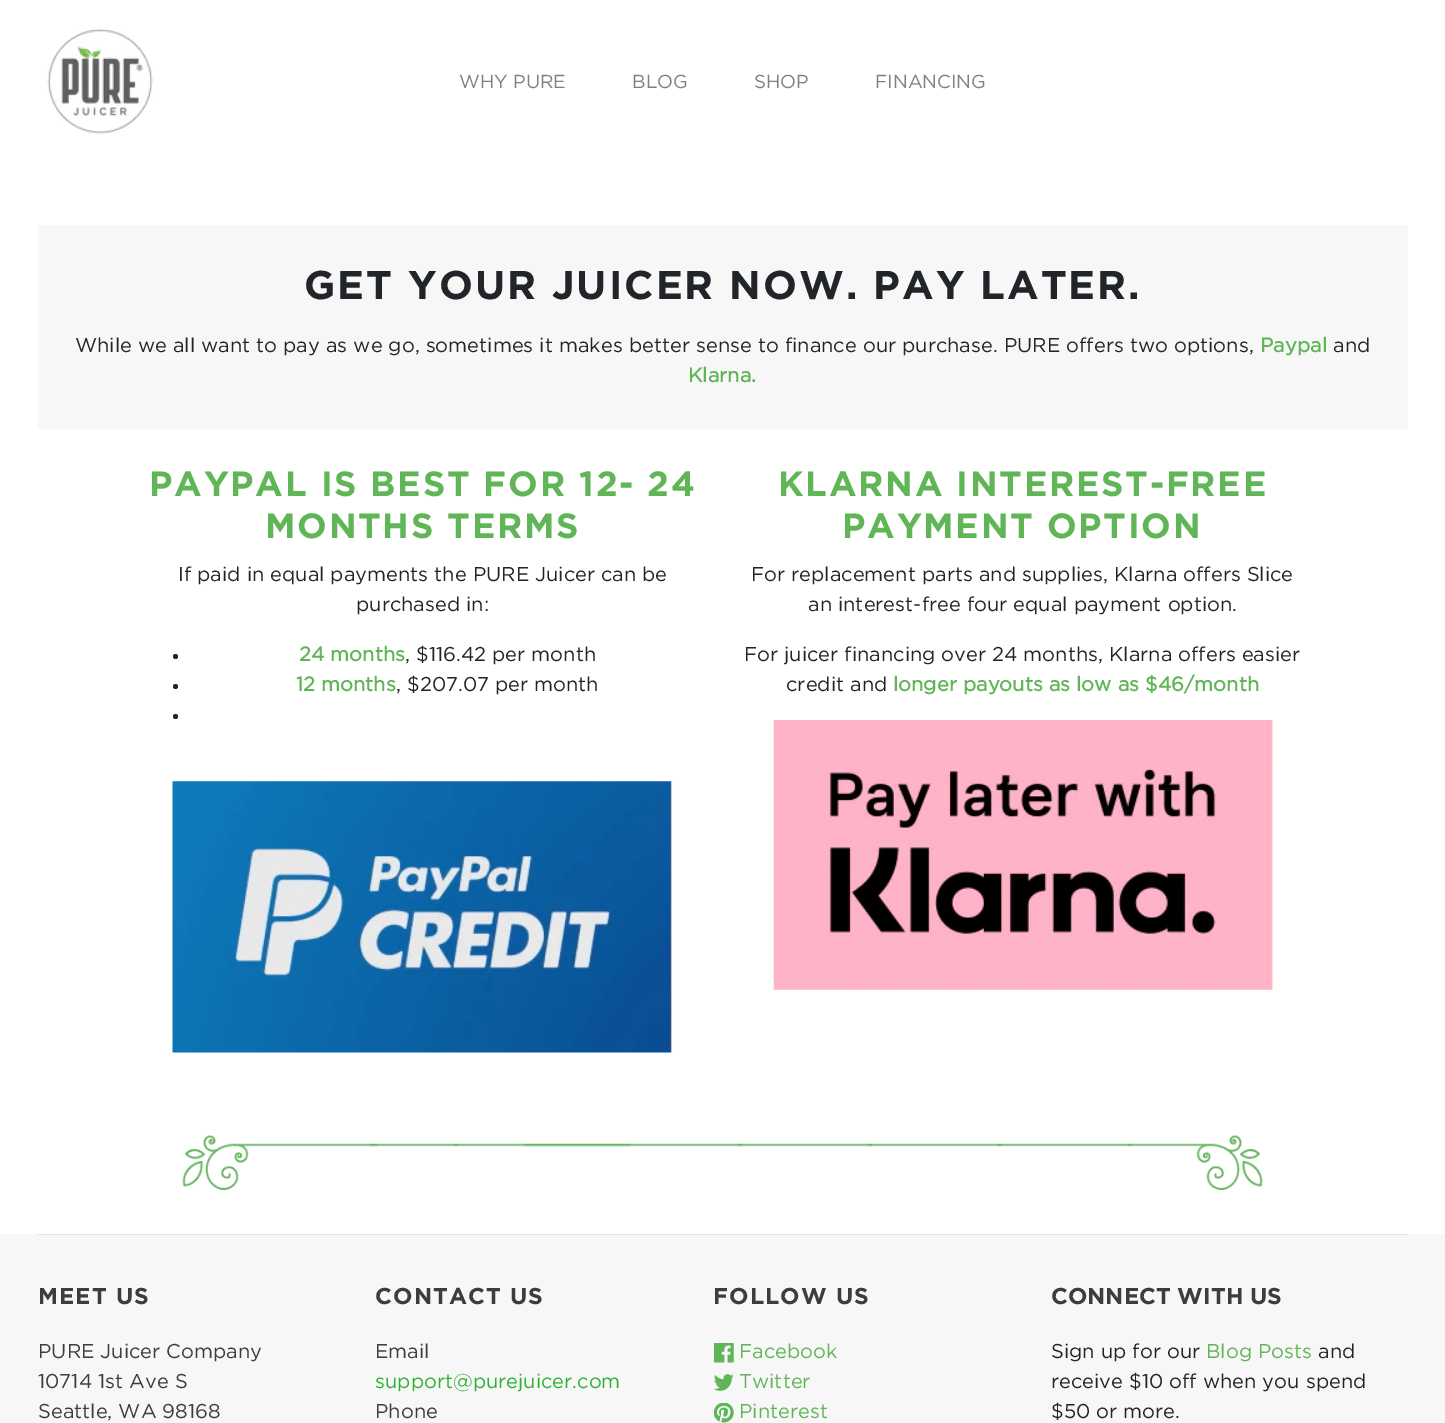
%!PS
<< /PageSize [1445 1423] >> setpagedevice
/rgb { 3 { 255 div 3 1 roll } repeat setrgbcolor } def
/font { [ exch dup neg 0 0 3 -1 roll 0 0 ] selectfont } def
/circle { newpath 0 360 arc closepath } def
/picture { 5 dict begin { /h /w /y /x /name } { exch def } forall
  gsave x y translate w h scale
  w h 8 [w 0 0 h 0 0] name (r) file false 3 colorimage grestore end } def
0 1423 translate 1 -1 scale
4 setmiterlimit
255 255 255 rgb
0 0 1445 1423 rectfill
(img/1.rgb) 47 29 106 105 picture
247 247 247 rgb
38 225 1370 204 rectfill
33 37 41 rgb
175.5 656.5 2.5 circle fill
175.5 686.5 2.5 circle fill
175.5 716.5 2.5 circle fill
(img/2.rgb) 172 781 501 272 picture
(img/3.rgb) 773 720 500 270 picture
(img/4.rgb) 182 1135 1081 55 picture
247 247 247 rgb
0 1234 1445 189 rectfill
228 228 228 rgb
38 1234 1370 1 rectfill
(img/5.rgb) 714 1343 20 20 picture
(img/6.rgb) 714 1374 20 17 picture
(img/7.rgb) 714 1403 20 20 picture
/Gotham-Regular 18.75 font
128 128 128 rgb
[
  [(WHY PURE) 459 88]
  [(BLOG) 632 88]
  [(SHOP) 754 88]
  [(FINANCING) 875 88]
] { aload pop moveto show } forall
/Gotham-Bold 40 font
33 37 41 rgb
304 299 moveto 2 0 (GET YOUR JUICER NOW. PAY LATER.) ashow
/Gotham-Regular 20 font
75 352 moveto (While we all want to pay as we go, sometimes it makes better sense to finance our purchase. PURE offers two options,) show
/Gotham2-Bold 20 font
96 182 87 rgb
1260 352 moveto (Paypal) show
/Gotham-Regular 20 font
33 37 41 rgb
1333 352 moveto (and) show
/Gotham2-Bold 20 font
96 182 87 rgb
688 382 moveto (Klarna.) show
/Gotham-Bold 35 font
149 496 moveto 1.75 0 (PAYPAL IS BEST FOR 12- 24) ashow
265 538 moveto 1.75 0 (MONTHS TERMS) ashow
/Gotham-Regular 20 font
33 37 41 rgb
178 581 moveto (If paid in equal payments the PURE Juicer can be) show
356 611 moveto (purchased in:) show
/Gotham2-Bold 20 font
96 182 87 rgb
299 661 moveto (24 months) show
/Gotham-Regular 20 font
33 37 41 rgb
405 661 moveto (, $116.42 per month) show
/Gotham2-Bold 20 font
96 182 87 rgb
296 691 moveto (12 months) show
/Gotham-Regular 20 font
33 37 41 rgb
396 691 moveto (, $207.07 per month) show
/Gotham-Bold 35 font
96 182 87 rgb
778 496 moveto 1.75 0 (KLARNA INTEREST-FREE) ashow
842 538 moveto 1.75 0 (PAYMENT OPTION) ashow
/Gotham-Regular 20 font
33 37 41 rgb
[
  [(For replacement parts and supplies, Klarna offers Slice) 751 581]
  [(an interest-free four equal payment option.) 808 611]
  [(For juicer financing over 24 months, Klarna offers easier) 744 661]
  [(credit and) 786 691]
] { aload pop moveto show } forall
/Gotham2-Bold 20 font
96 182 87 rgb
893 691 moveto (longer payouts as low as $46/month) show
/Gotham-Bold 22.9 font
61 61 61 rgb
38 1304 moveto 1.1 0 (MEET US) ashow
/Gotham-Regular 20 font
[
  [(PURE Juicer Company) 38 1358]
  [(10714 1st Ave S) 38 1388]
  [(Seattle, WA 98168) 38 1418]
] { aload pop moveto show } forall
/Gotham-Bold 22.9 font
375 1304 moveto 1.1 0 (CONTACT US) ashow
/Gotham-Regular 20 font
375 1358 moveto (Email) show
46 177 53 rgb
375 1388 moveto (support@purejuicer.com) show
61 61 61 rgb
375 1418 moveto (Phone) show
/Gotham-Bold 22.9 font
713 1304 moveto 1.1 0 (FOLLOW US) ashow
/Gotham-Regular 20 font
96 182 87 rgb
[
  [(Facebook) 739 1358]
  [(Twitter) 739 1388]
  [(Pinterest) 739 1418]
] { aload pop moveto show } forall
/Gotham-Bold 22.9 font
61 61 61 rgb
1051 1304 moveto (CONNECT WITH US) show
/Gotham-Regular 20 font
33 37 41 rgb
1051 1358 moveto (Sign up for our) show
96 182 87 rgb
1206 1358 moveto (Blog Posts) show
33 37 41 rgb
[
  [(and) 1318 1358]
  [(receive $10 off when you spend) 1051 1388]
  [($50 or more.) 1051 1418]
] { aload pop moveto show } forall
showpage
